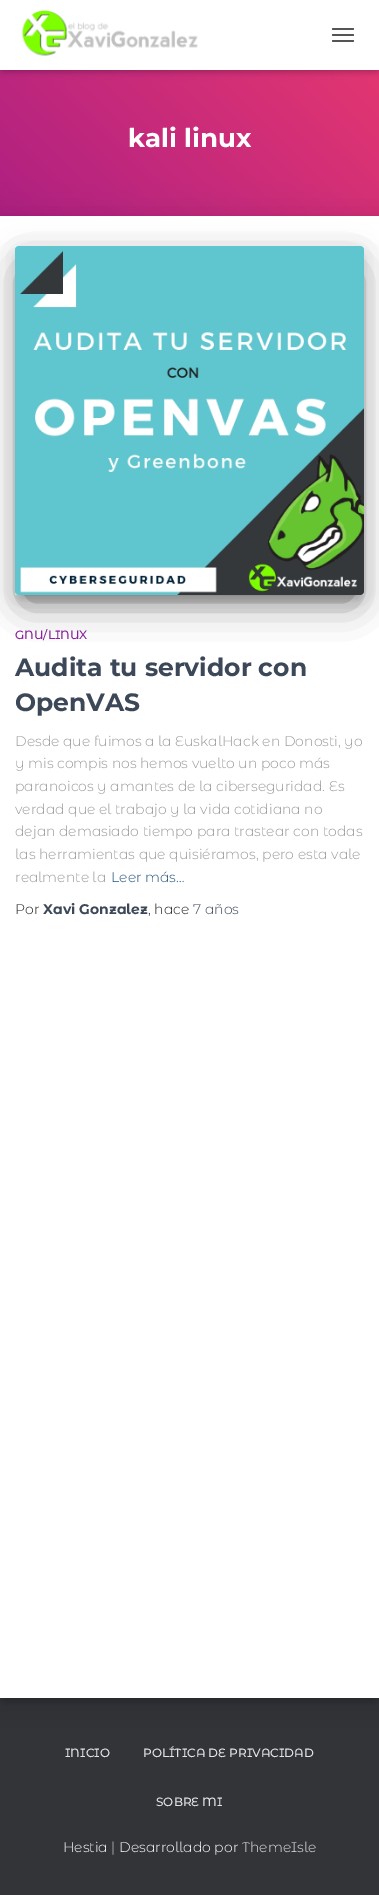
%!PS
<< /PageSize [379 1895] /PageUsesTransparency true >> setpagedevice
/rgb { 3 { 255 div 3 1 roll } repeat setrgbcolor } def
/font { [ exch dup neg 0 0 3 -1 roll 0 0 ] selectfont } def
/alpha { dup .setfillconstantalpha .setstrokeconstantalpha } def
/roundrect { 5 dict begin { /r /h /w /y /x } { exch def } forall
  x r add y moveto x w add y 2 copy h add r arct x w add y h add x 1 index r arct
  x y h add x y r arct x y 2 copy exch w add exch r arct closepath end } def
/shadow { 12 dict begin { /a /b /q /h /w /y /x } { exch def } forall gsave /was 0 def
  9 -2 -9 { dup b mul 4 div /e exch def 1 sub .425 mul 2.718 exch exp 1 add a .99 .min exch div /now exch def
    1 1 now sub 1 was sub div sub alpha /was now def
    w h .min e 2 mul add 0 gt { x e sub y e sub w e 2 mul add h e 2 mul add
      q e add b .6 mul add w h .min 2 div e add .min 0 .max roundrect fill } if } for grestore end } def
/picture { 5 dict begin { /h /w /y /x /name } { exch def } forall
  gsave x y translate w h scale
  w h 8 [w 0 0 h 0 0] name (r) file false 3 colorimage grestore end } def
0 .pushpdf14devicefilter
0 1895 translate 1 -1 scale
4 setmiterlimit
50 52 55 rgb
0 0 379 1895 rectfill
gsave 0 70 moveto 379 70 lineto 379 216 lineto 0 216 lineto closepath clip newpath
<< /ShadingType 2 /ColorSpace /DeviceRGB /Coords [26 302 353 -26] /Extend [true true] /Function << /FunctionType 2 /Domain [0 1] /C0 [0.659 0.114 0.518] /C1 [0.918 0.224 0.435] /N 1 >> >> shfill grestore
0 0 0 rgb
2 6 375 66 0 2.5 0.1 shadow
0 1 379 70 0 5 0.12 shadow
6 7 367 58 0 5 0.42 shadow
255 255 255 rgb
0 0 379 70 rectfill
(img/1.rgb) 21 10 177 46 picture
85 85 85 rgb
332 28 22 2 1 roundrect fill
332 34 22 2 1 roundrect fill
332 40 22 2 1 roundrect fill
0 0 0 rgb
5 229 369 1472 0 5 0.2 shadow
-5 217 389 1492 0 15 0.12 shadow
255 255 255 rgb
0 216 379 1482 rectfill
0 0 0 rgb
20 259 339 339 0 5 0.2 shadow
15 250 349 349 3 12.5 0.12 shadow
27 274 325 325 0 19 0.56 shadow
(img/2.rgb) 15 246 349 349 picture
/Montserrat-Bold 26 font
255 255 255 rgb
128 147 moveto (kali linux) show
/MontserratAlternates-Medium 12 font
137 34 155 rgb
15 639 moveto (GNU/LINUX) show
/Montserrat-Bold 25 font
60 72 88 rgb
15 676 moveto (Audita tu servidor con) show
15 711 moveto (OpenVAS) show
/MontserratAlternates-Light 14 font
153 153 153 rgb
[
  [(Desde que fuimos a la EuskalHack en Donosti, yo) 15 746]
  [(y mis compis nos hemos vuelto un poco más) 15 768]
  [(paranoicos y amantes de la ciberseguridad. Es) 15 791]
  [(verdad que el trabajo y la vida cotidiana no) 15 814]
  [(dejan demasiado tiempo para trastear con todas) 15 836]
  [(las herramientas que quisiéramos, pero esta vale) 15 859]
  [(realmente la) 15 882]
] { aload pop moveto show } forall
35 82 124 rgb
111 882 moveto (Leer más…) show
33 33 33 rgb
15 914 moveto (Por) show
/MontserratAlternates-Bold 14 font
60 72 88 rgb
43 914 moveto (Xavi Gonzalez) show
/MontserratAlternates-Light 14 font
33 33 33 rgb
148 914 moveto (, hace) show
60 72 88 rgb
193 914 moveto (7 años) show
/MontserratAlternates-Medium 12 font
226 227 227 rgb
[
  [(INICIO) 65 1757]
  [(POLÍTICA DE PRIVACIDAD) 143 1757]
  [(SOBRE MI) 156 1806]
] { aload pop moveto show } forall
/MontserratAlternates-Light 14 font
255 255 255 rgb
63 1852 moveto (Hestia | Desarrollado por) show
226 227 227 rgb
242 1852 moveto (ThemeIsle) show
.poppdf14devicefilter showpage
